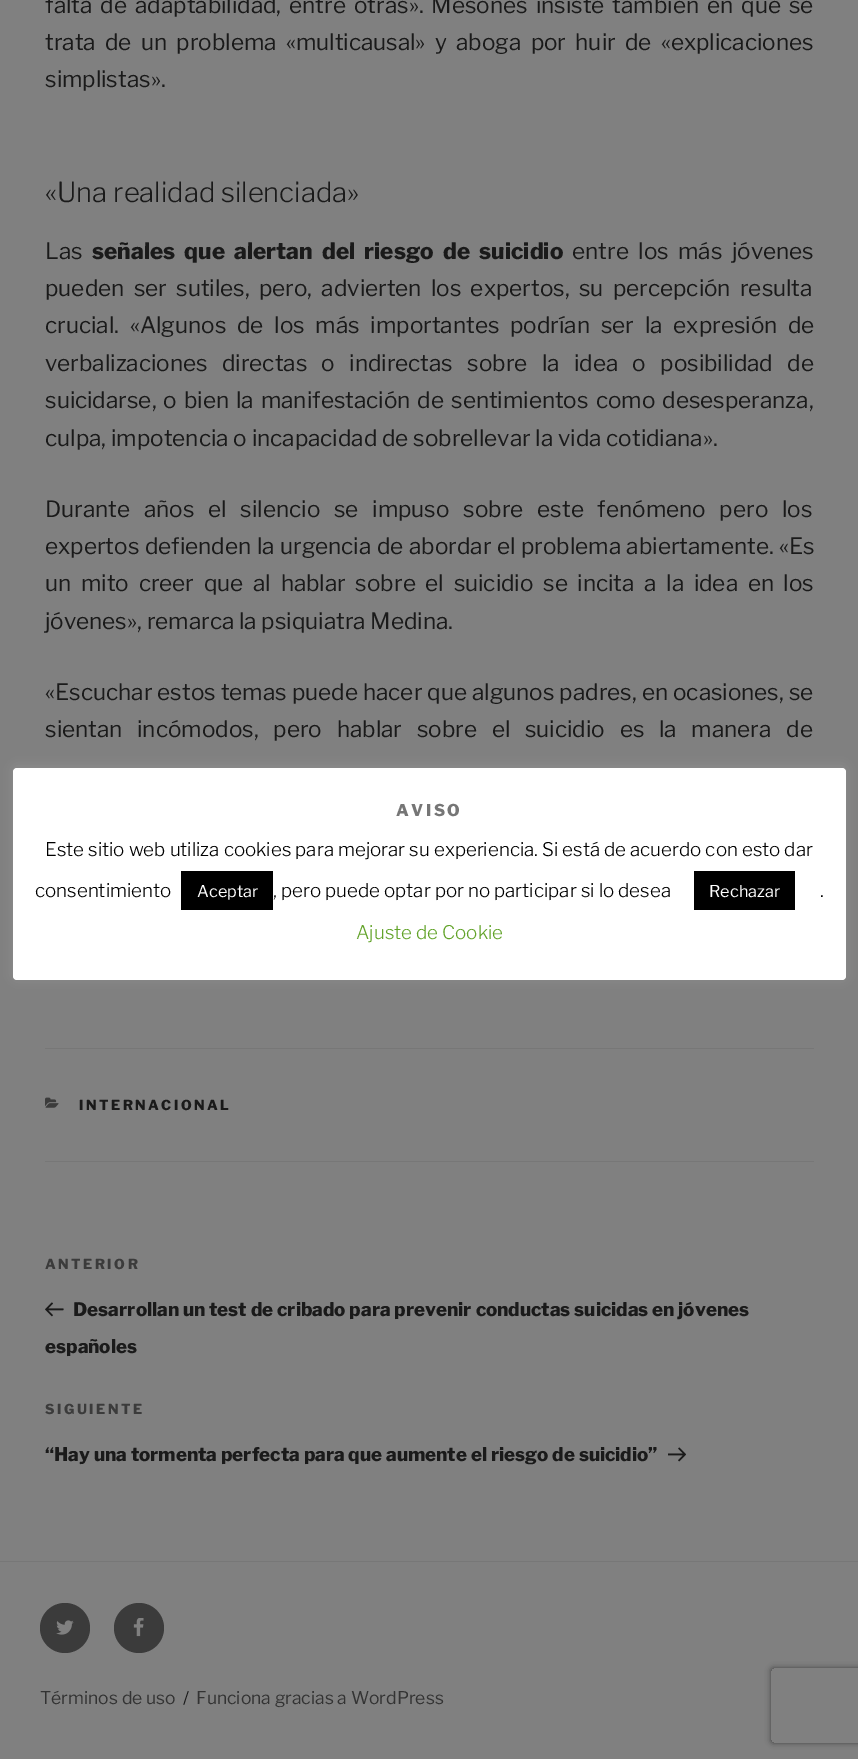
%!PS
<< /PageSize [858 1759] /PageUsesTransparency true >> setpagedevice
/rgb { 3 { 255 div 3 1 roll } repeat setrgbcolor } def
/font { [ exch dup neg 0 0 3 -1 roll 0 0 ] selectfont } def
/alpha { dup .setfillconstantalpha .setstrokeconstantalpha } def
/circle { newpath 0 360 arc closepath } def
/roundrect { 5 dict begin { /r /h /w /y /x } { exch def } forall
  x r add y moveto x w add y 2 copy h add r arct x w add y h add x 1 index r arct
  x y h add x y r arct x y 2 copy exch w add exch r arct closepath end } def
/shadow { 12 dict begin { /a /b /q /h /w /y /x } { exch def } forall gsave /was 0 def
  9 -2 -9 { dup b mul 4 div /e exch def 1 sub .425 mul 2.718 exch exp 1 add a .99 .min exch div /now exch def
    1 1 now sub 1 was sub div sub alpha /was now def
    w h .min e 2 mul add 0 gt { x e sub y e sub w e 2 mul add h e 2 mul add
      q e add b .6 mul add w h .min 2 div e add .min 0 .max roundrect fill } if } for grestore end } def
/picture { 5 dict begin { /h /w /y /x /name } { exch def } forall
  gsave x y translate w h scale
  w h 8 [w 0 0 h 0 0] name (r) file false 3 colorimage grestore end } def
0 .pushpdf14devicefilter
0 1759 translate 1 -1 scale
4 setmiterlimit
128 128 128 rgb
0 0 858 1759 rectfill
119 119 119 rgb
45 1048 769 1 rectfill
45 1161 769 1 rectfill
(img/1.rgb) 45 1097 14 11 picture
(img/2.rgb) 45 1302 19 15 picture
(img/3.rgb) 668 1447 18 15 picture
0 1561 858 1 rectfill
59 59 59 rgb
65 1628 25 circle fill
(img/4.rgb) 56 1620 18 15 picture
139 1628 25 circle fill
(img/5.rgb) 133 1618 11 19 picture
172 171 171 rgb
13 766 833 213 4 6 0.3 shadow
255 255 255 rgb
13 768 833 212 4 roundrect fill
0 0 0 rgb
181 871 92 39 rectfill
694 871 101 39 rectfill
gsave
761 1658 moveto 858 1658 lineto 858 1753 lineto 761 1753 lineto closepath 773.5 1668 moveto 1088.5 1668 lineto 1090 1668 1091 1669 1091 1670.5 curveto 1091 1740.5 lineto 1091 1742 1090 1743 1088.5 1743 curveto 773.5 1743 lineto 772 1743 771 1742 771 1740.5 curveto 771 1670.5 lineto 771 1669 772 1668 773.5 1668 curveto closepath eoclip newpath
64 64 64 rgb
771 1668 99 75 2.5 3 1 shadow
grestore
/LibreFranklin-Regular 22.5 font
26 26 26 rgb
45 13 moveto 3.25 0 32 (falta de adaptabilidad, entre otras». Mesones insiste también en que se) widthshow
45 50 moveto 4.5 0 32 (trata de un problema «multicausal» y aboga por huir de «explicaciones) widthshow
45 87 moveto (simplistas».) show
/LibreFranklin-Light 27.5 font
45 202 moveto («Una realidad silenciada») show
/LibreFranklin-Regular 22.5 font
45 259 moveto (Las) show
/LibreFranklin-ExtraBold 22.5 font
92 259 moveto 4.75 0 32 (señales que alertan del riesgo de suicidio) widthshow
/LibreFranklin-Regular 22.5 font
572 259 moveto 4.75 0 32 (entre los más jóvenes) widthshow
45 296 moveto 4.5 0 32 (pueden ser sutiles, pero, advierten los expertos, su percepción resulta) widthshow
45 333 moveto 6 0 32 (crucial. «Algunos de los más importantes podrían ser la expresión de) widthshow
45 371 moveto 9.5 0 32 (verbalizaciones directas o indirectas sobre la idea o posibilidad de) widthshow
45 408 moveto 2.25 0 32 (suicidarse, o bien la manifestación de sentimientos como desesperanza,) widthshow
45 446 moveto (culpa, impotencia o incapacidad de sobrellevar la vida cotidiana».) show
45 517 moveto 9 0 32 (Durante años el silencio se impuso sobre este fenómeno pero los) widthshow
45 554 moveto 0.75 0 32 (expertos defienden la urgencia de abordar el problema abiertamente. «Es) widthshow
45 591 moveto 4.9 0 32 (un mito creer que al hablar sobre el suicidio se incita a la idea en los) widthshow
45 629 moveto (jóvenes», remarca la psiquiatra Medina.) show
45 700 moveto 0.25 0 32 («Escuchar estos temas puede hacer que algunos padres, en ocasiones, se) widthshow
45 737 moveto 10 0 32 (sientan incómodos, pero hablar sobre el suicidio es la manera de) widthshow
/LibreFranklin-ExtraBold 13.75 font
79 1110 moveto 2.5 0 (INTERNACIONAL) ashow
59 59 59 rgb
45 1269 moveto 2.5 0 (ANTERIOR) ashow
/LibreFranklin-ExtraBold 18.75 font
26 26 26 rgb
73 1316 moveto (Desarrollan un test de cribado para prevenir conductas suicidas en jóvenes) show
45 1353 moveto (españoles) show
/LibreFranklin-ExtraBold 13.75 font
59 59 59 rgb
45 1414 moveto 2.5 0 (SIGUIENTE) ashow
/LibreFranklin-ExtraBold 18.75 font
26 26 26 rgb
45 1461 moveto (“Hay una tormenta perfecta para que aumente el riesgo de suicidio”) show
/LibreFranklin-Regular 17.5 font
51 51 51 rgb
40 1704 moveto (Términos de uso) show
26 26 26 rgb
183 1704 moveto (/) show
51 51 51 rgb
196 1704 moveto (Funciona gracias a WordPress) show
/LibreFranklin-ExtraBold 16.25 font
118 118 118 rgb
396 816 moveto 2.5 0 (AVISO) ashow
/LibreFranklin-Light 18.75 font
0 0 0 rgb
45 856 moveto (Este sitio web utiliza cookies para mejorar su experiencia. Si está de acuerdo con esto dar) show
35 897 moveto (consentimiento) show
/LibreFranklin-Regular 16.25 font
255 255 255 rgb
197 897 moveto (Aceptar) show
/LibreFranklin-Light 18.75 font
0 0 0 rgb
273 897 moveto (, pero puede optar por no participar si lo desea) show
/LibreFranklin-Regular 16.25 font
255 255 255 rgb
709 897 moveto (Rechazar) show
/LibreFranklin-Light 18.75 font
0 0 0 rgb
820 897 moveto (.) show
98 163 41 rgb
356 939 moveto (Ajuste de Cookie) show
.poppdf14devicefilter showpage
